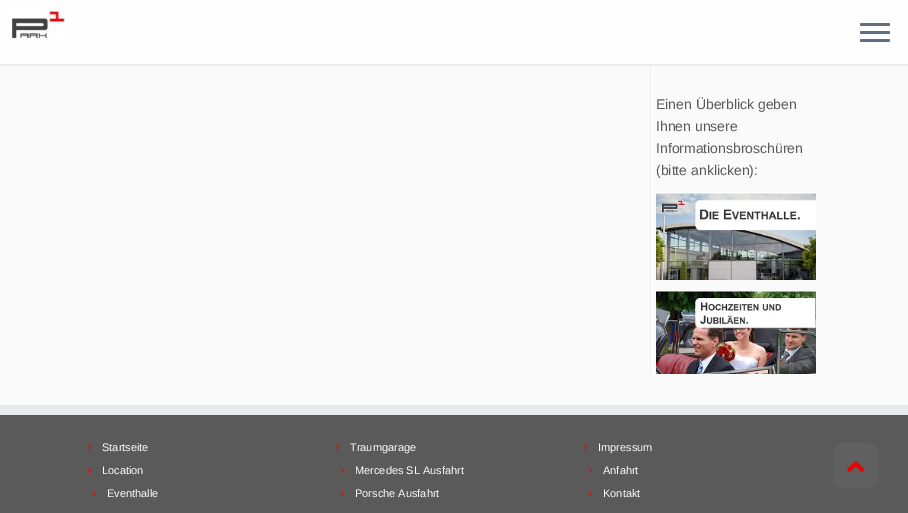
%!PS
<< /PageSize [908 513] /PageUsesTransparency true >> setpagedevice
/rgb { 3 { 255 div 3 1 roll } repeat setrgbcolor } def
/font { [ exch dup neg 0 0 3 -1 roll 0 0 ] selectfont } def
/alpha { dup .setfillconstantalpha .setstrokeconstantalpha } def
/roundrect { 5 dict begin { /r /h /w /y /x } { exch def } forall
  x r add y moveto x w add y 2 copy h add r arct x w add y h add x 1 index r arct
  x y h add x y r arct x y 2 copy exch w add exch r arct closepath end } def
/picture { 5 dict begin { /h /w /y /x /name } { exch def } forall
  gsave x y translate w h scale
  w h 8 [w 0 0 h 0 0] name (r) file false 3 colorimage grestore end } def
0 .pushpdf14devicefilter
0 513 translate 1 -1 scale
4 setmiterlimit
250 250 250 rgb
0 0 908 513 rectfill
[
  [650 0 1 374 238 238 238]
  [651 0 1 374 255 255 255]
] { aload pop rgb rectfill } forall
0.8 alpha
[
  [0 0 908 64 255 255 255]
] { aload pop rgb rectfill } forall
1 alpha
[
  [0 64 908 2 233 234 238]
] { aload pop rgb rectfill } forall
(img/1.rgb) 11 10 54 30 picture
95 111 129 rgb
860 23 30 3 1.5 roundrect fill
860 31 30 3 1.5 roundrect fill
860 39 30 3 1.5 roundrect fill
(img/2.rgb) 656 192 160 88 picture
(img/3.rgb) 656 291 160 83 picture
90 90 90 rgb
0 415 908 98 rectfill
233 234 238 rgb
0 405 908 10 rectfill
96 96 96 rgb
833 443 45 45 10 roundrect fill
(img/4.rgb) 847 460 18 13 picture
/LiberationSans-Regular 14 font
90 90 90 rgb
[
  [(Einen Überblick geben) 656 109]
  [(Ihnen unsere) 656 131]
  [(Informationsbroschüren) 656 153]
  [(\(bitte anklicken\):) 656 175]
] { aload pop moveto show } forall
225 7 7 rgb
87 451 moveto (›) show
/LiberationSans-Regular 11 font
250 250 250 rgb
102 451 moveto (Startseite) show
/LiberationSans-Regular 14 font
225 7 7 rgb
87 474 moveto (›) show
/LiberationSans-Regular 11 font
250 250 250 rgb
102 474 moveto (Location) show
/LiberationSans-Regular 14 font
225 7 7 rgb
92 497 moveto (›) show
/LiberationSans-Regular 11 font
250 250 250 rgb
107 497 moveto (Eventhalle) show
/LiberationSans-Regular 14 font
225 7 7 rgb
335 451 moveto (›) show
/LiberationSans-Regular 11 font
250 250 250 rgb
350 451 moveto (Traumgarage) show
/LiberationSans-Regular 14 font
225 7 7 rgb
340 474 moveto (›) show
/LiberationSans-Regular 11 font
250 250 250 rgb
355 474 moveto (Mercedes SL Ausfahrt) show
/LiberationSans-Regular 14 font
225 7 7 rgb
340 497 moveto (›) show
/LiberationSans-Regular 11 font
250 250 250 rgb
355 497 moveto (Porsche Ausfahrt) show
/LiberationSans-Regular 14 font
225 7 7 rgb
583 451 moveto (›) show
/LiberationSans-Regular 11 font
250 250 250 rgb
598 451 moveto (Impressum) show
/LiberationSans-Regular 14 font
225 7 7 rgb
588 474 moveto (›) show
/LiberationSans-Regular 11 font
250 250 250 rgb
603 474 moveto (Anfahrt) show
/LiberationSans-Regular 14 font
225 7 7 rgb
588 497 moveto (›) show
/LiberationSans-Regular 11 font
250 250 250 rgb
603 497 moveto (Kontakt) show
.poppdf14devicefilter showpage
